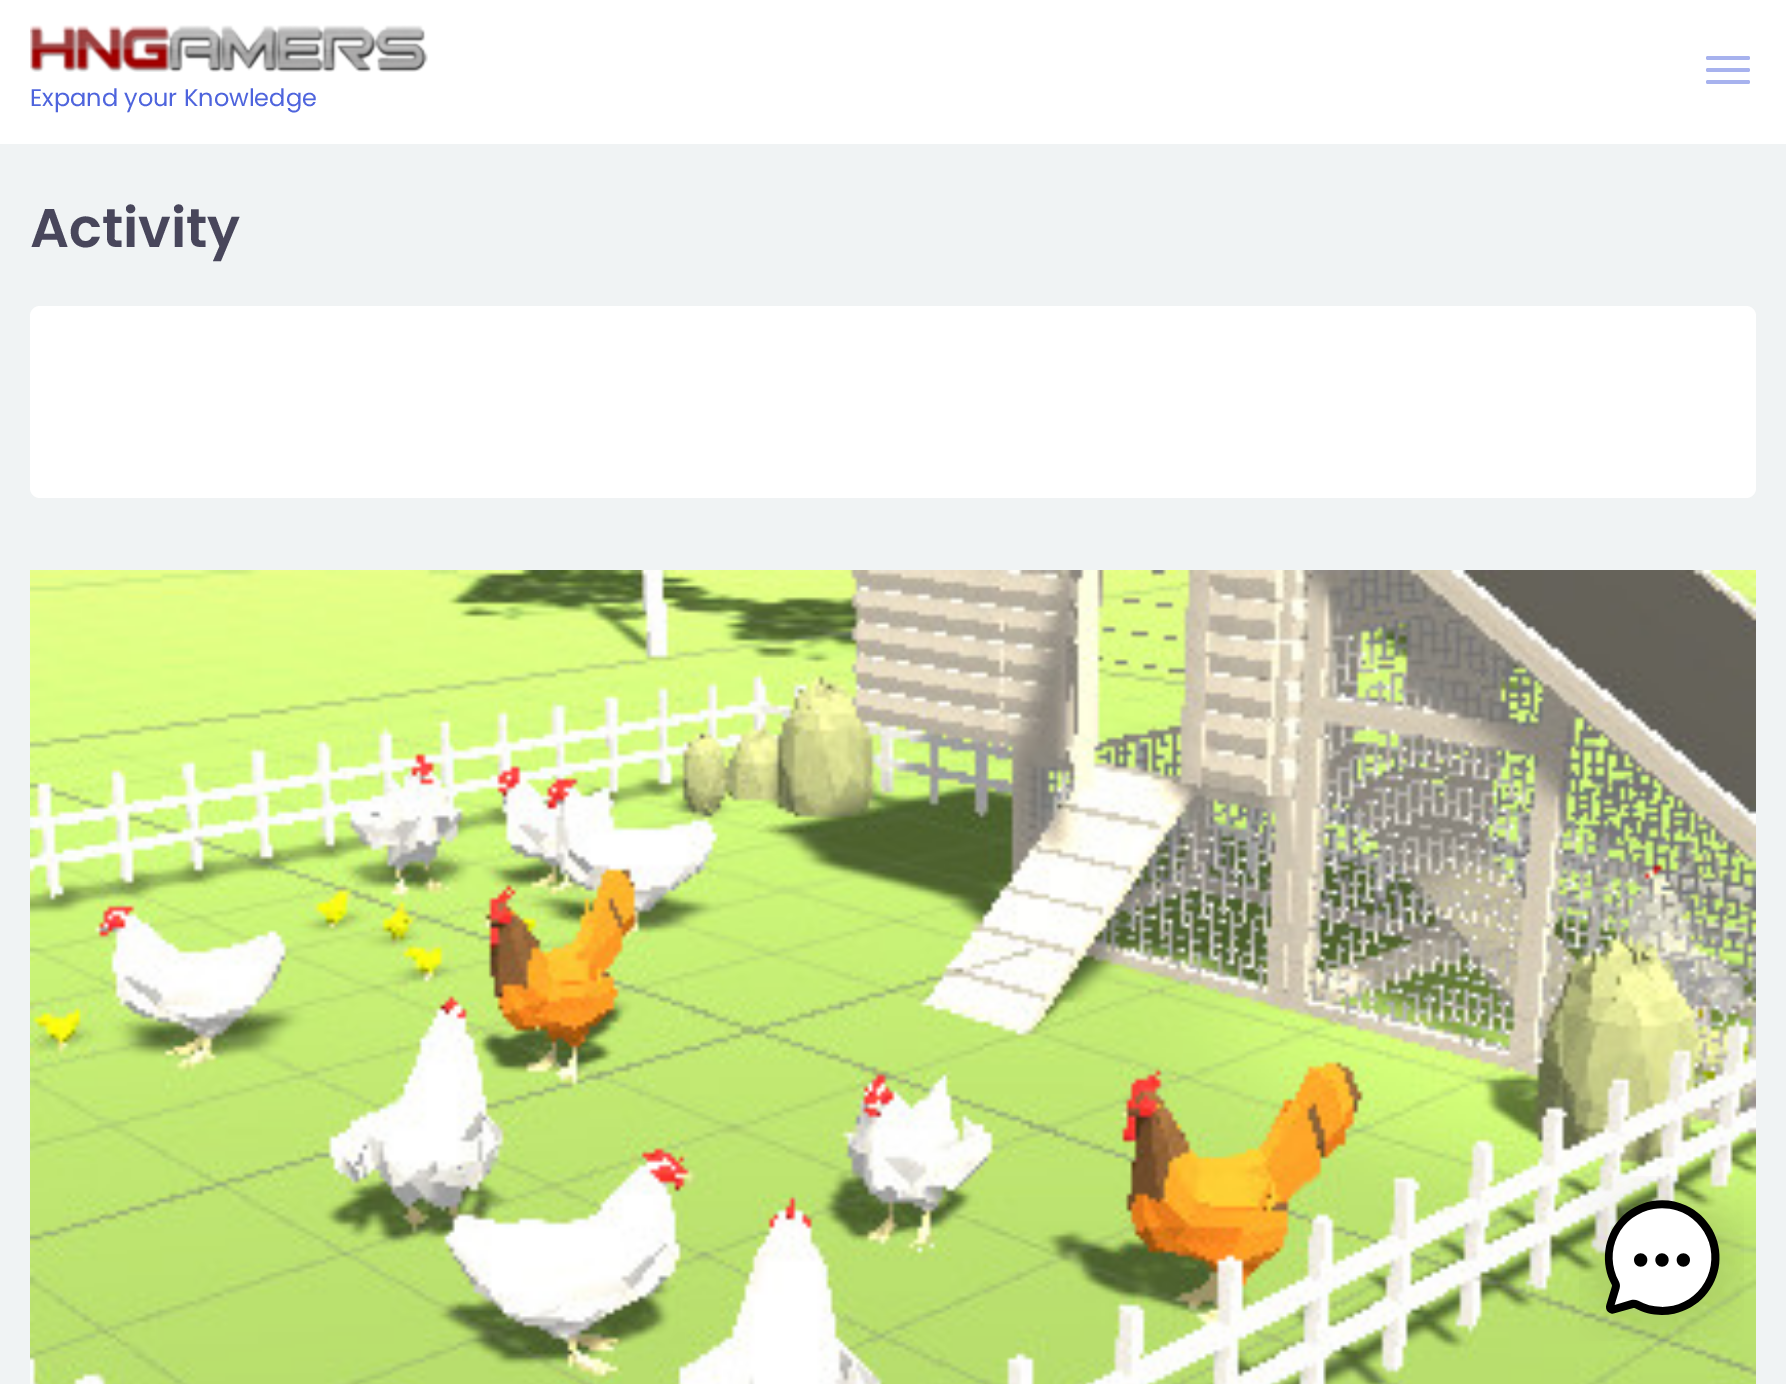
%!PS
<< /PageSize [1786 1384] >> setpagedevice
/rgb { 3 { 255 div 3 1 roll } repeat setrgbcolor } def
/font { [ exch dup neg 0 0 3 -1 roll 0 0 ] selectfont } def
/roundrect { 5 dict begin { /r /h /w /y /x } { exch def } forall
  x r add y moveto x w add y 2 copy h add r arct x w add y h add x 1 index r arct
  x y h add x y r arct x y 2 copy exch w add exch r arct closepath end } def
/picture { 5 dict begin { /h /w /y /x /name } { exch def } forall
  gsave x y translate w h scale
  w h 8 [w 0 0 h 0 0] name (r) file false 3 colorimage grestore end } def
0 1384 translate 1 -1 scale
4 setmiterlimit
255 255 255 rgb
0 0 1786 1384 rectfill
167 178 238 rgb
1706 68 44 4 2 roundrect fill
1706 56 44 4 2 roundrect fill
1706 80 44 4 2 roundrect fill
(img/1.rgb) 30 25 398 47 picture
240 243 244 rgb
0 144 1786 1240 rectfill
(img/2.rgb) 30 570 1726 814 picture
255 255 255 rgb
30 306 1726 192 10 roundrect fill
(img/3.rgb) 1579 1176 165 165 picture
/Poppins-Regular 24 font
78 100 221 rgb
30 106 moveto (Expand your Knowledge) show
/Poppins-SemiBold 54.5 font
72 70 91 rgb
30 247 moveto (Activity) show
showpage
